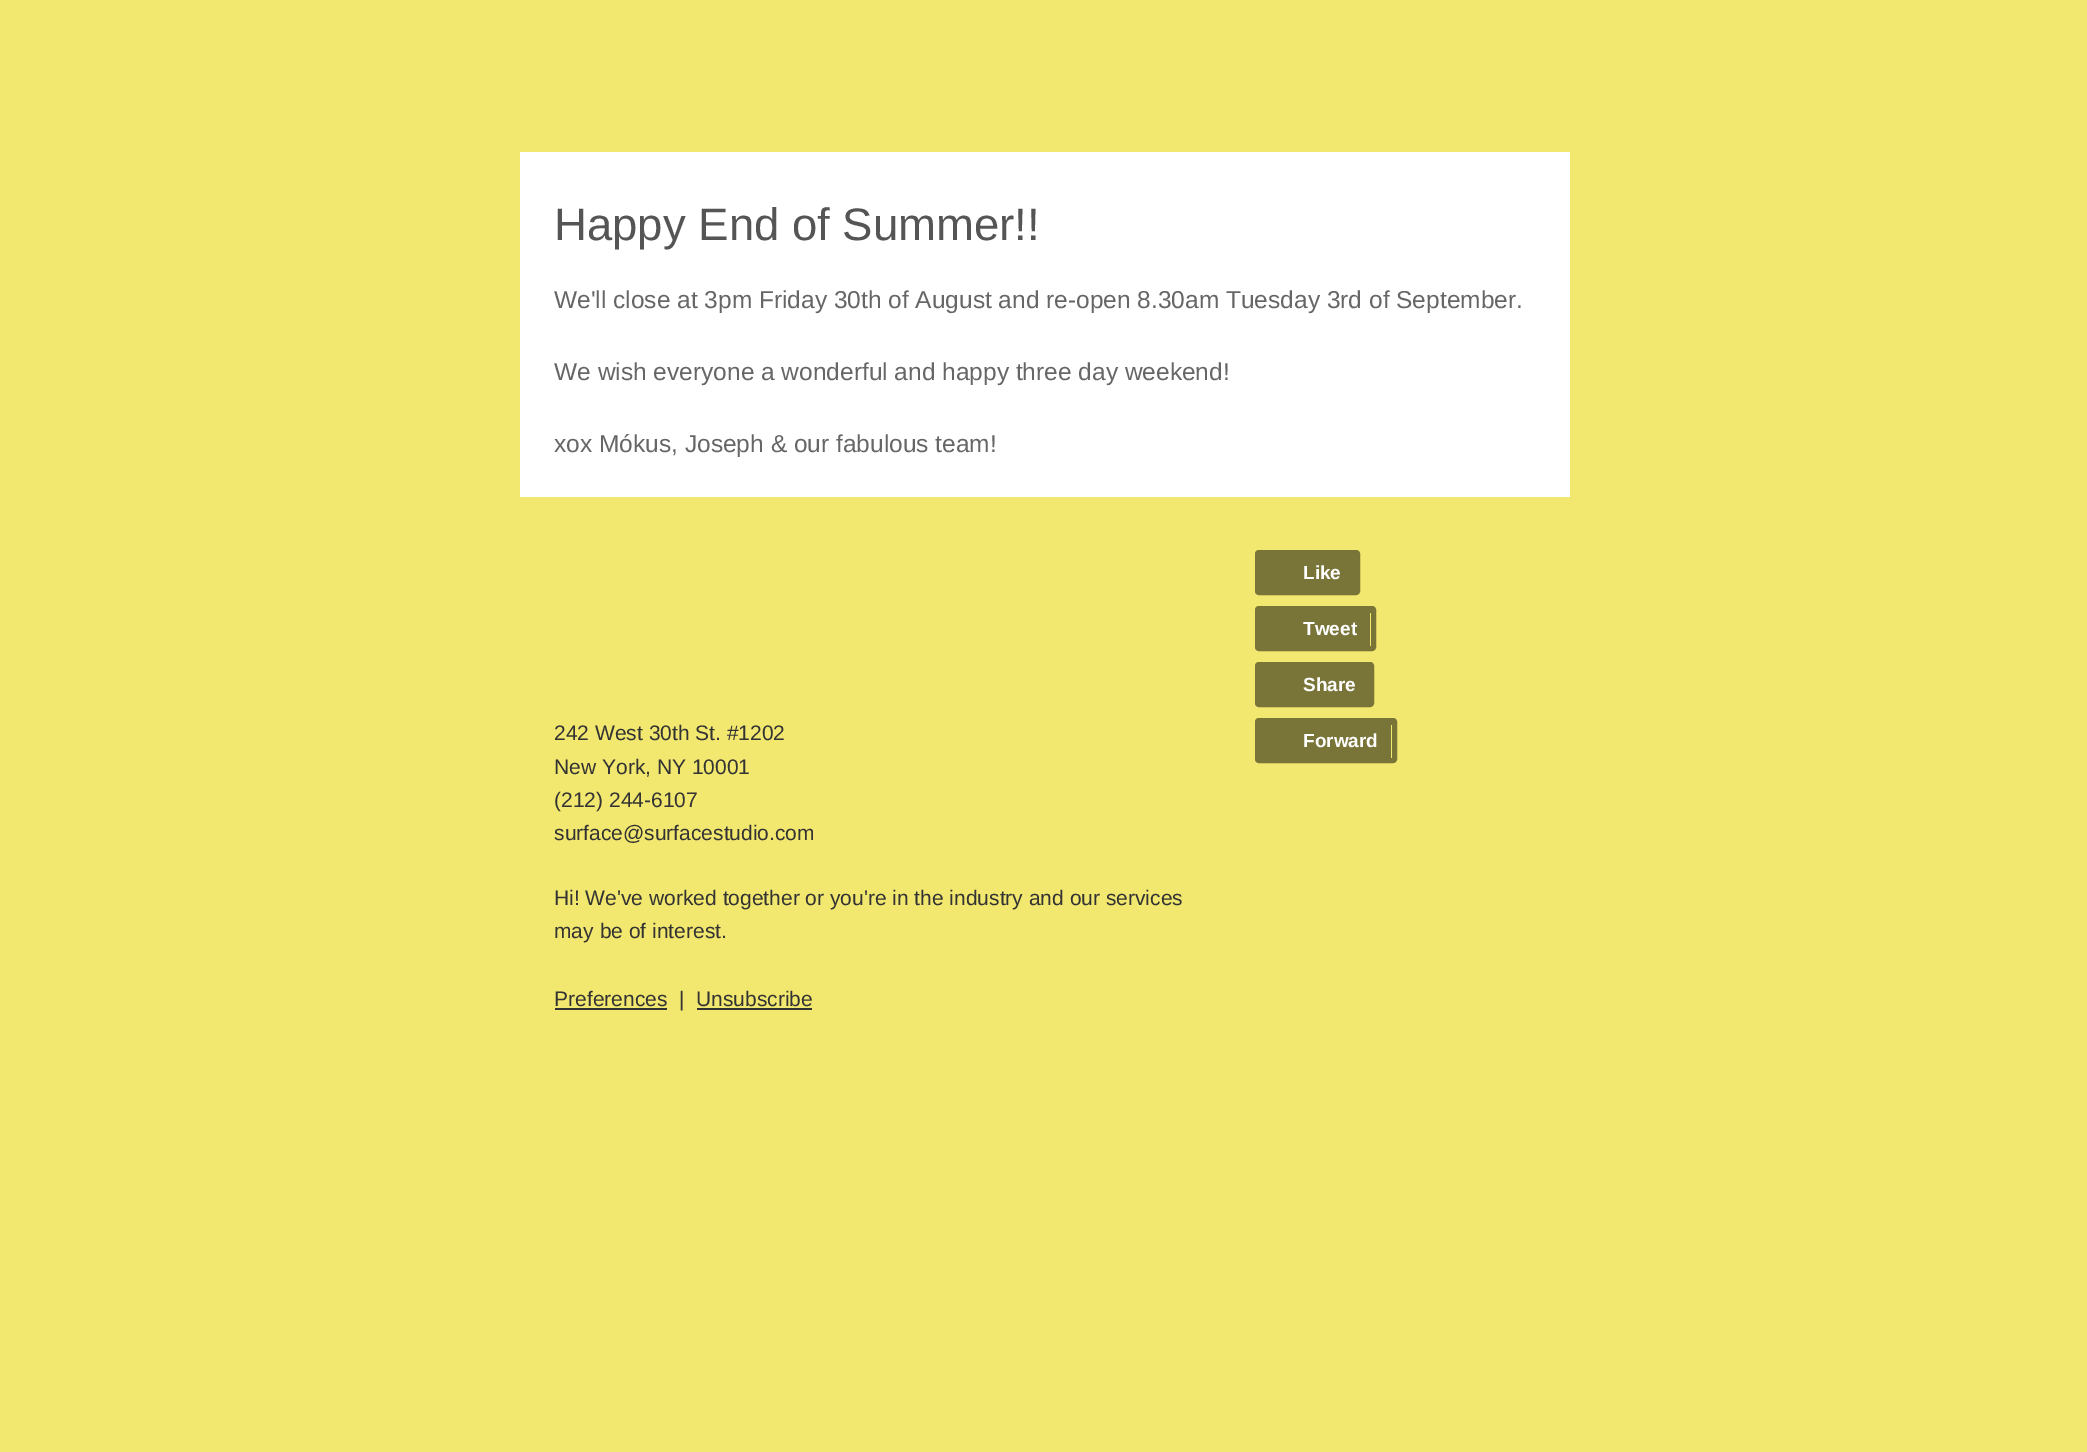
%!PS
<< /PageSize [2087 1452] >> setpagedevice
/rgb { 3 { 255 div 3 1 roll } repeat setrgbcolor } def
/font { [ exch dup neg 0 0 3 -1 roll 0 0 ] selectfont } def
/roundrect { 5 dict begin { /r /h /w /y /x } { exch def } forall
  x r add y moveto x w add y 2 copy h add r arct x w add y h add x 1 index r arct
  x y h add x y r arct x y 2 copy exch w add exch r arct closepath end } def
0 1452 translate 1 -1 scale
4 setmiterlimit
242 231 111 rgb
0 0 2087 1452 rectfill
255 255 255 rgb
520 152 1050 345 rectfill
121 116 56 rgb
1262 557 86 33 rectfill
5 setlinewidth
1257.5 552.5 100 40 1.5 roundrect stroke
[
  [1257 555 101 2 121 116 56]
  [1348 551 7 42 121 116 56]
  [1260 551 2 42 121 116 56]
  [1262 613 101 33 121 116 56]
] { aload pop rgb rectfill } forall
1257.5 608.5 116 40 1.5 roundrect stroke
[
  [1257 611 117 2 121 116 56]
  [1363 607 7 42 121 116 56]
  [1260 607 2 42 121 116 56]
  [1262 669 100 33 121 116 56]
] { aload pop rgb rectfill } forall
1257.5 664.5 114 40 1.5 roundrect stroke
[
  [1257 667 115 2 121 116 56]
  [1362 663 7 42 121 116 56]
  [1260 663 2 42 121 116 56]
  [1262 725 122 33 121 116 56]
] { aload pop rgb rectfill } forall
1257.5 720.5 137 40 1.5 roundrect stroke
[
  [1257 723 138 2 121 116 56]
  [1384 719 7 42 121 116 56]
  [1260 719 2 42 121 116 56]
  [555 1008 112 2 51 51 51]
  [697 1008 115 2 51 51 51]
] { aload pop rgb rectfill } forall
/LiberationSans-Regular 45.5 font
85 85 85 rgb
554 240 moveto (Happy End of Summer!!) show
/LiberationSans-Regular 24.5 font
102 102 102 rgb
[
  [(We'll close at 3pm Friday 30th of August and re-open 8.30am Tuesday 3rd of September.) 554 308]
  [(We wish everyone a wonderful and happy three day weekend!) 554 380]
  [(xox Mókus, Joseph & our fabulous team!) 554 452]
] { aload pop moveto show } forall
/LiberationSans-Bold 19 font
255 255 255 rgb
[
  [(Like) 1303 579]
  [(Tweet) 1303 635]
  [(Share) 1303 691]
  [(Forward) 1303 747]
] { aload pop moveto show } forall
/LiberationSans-Regular 21 font
51 51 51 rgb
[
  [(242 West 30th St. #1202) 554 740]
  [(New York, NY 10001) 554 774]
  [(\(212\) 244-6107) 554 807]
  [(surface@surfacestudio.com) 554 840]
  [(Hi! We've worked together or you're in the industry and our services) 554 905]
  [(may be of interest.) 554 938]
  [(Preferences) 554 1006]
  [(|) 679 1006]
  [(Unsubscribe) 696 1006]
] { aload pop moveto show } forall
showpage
